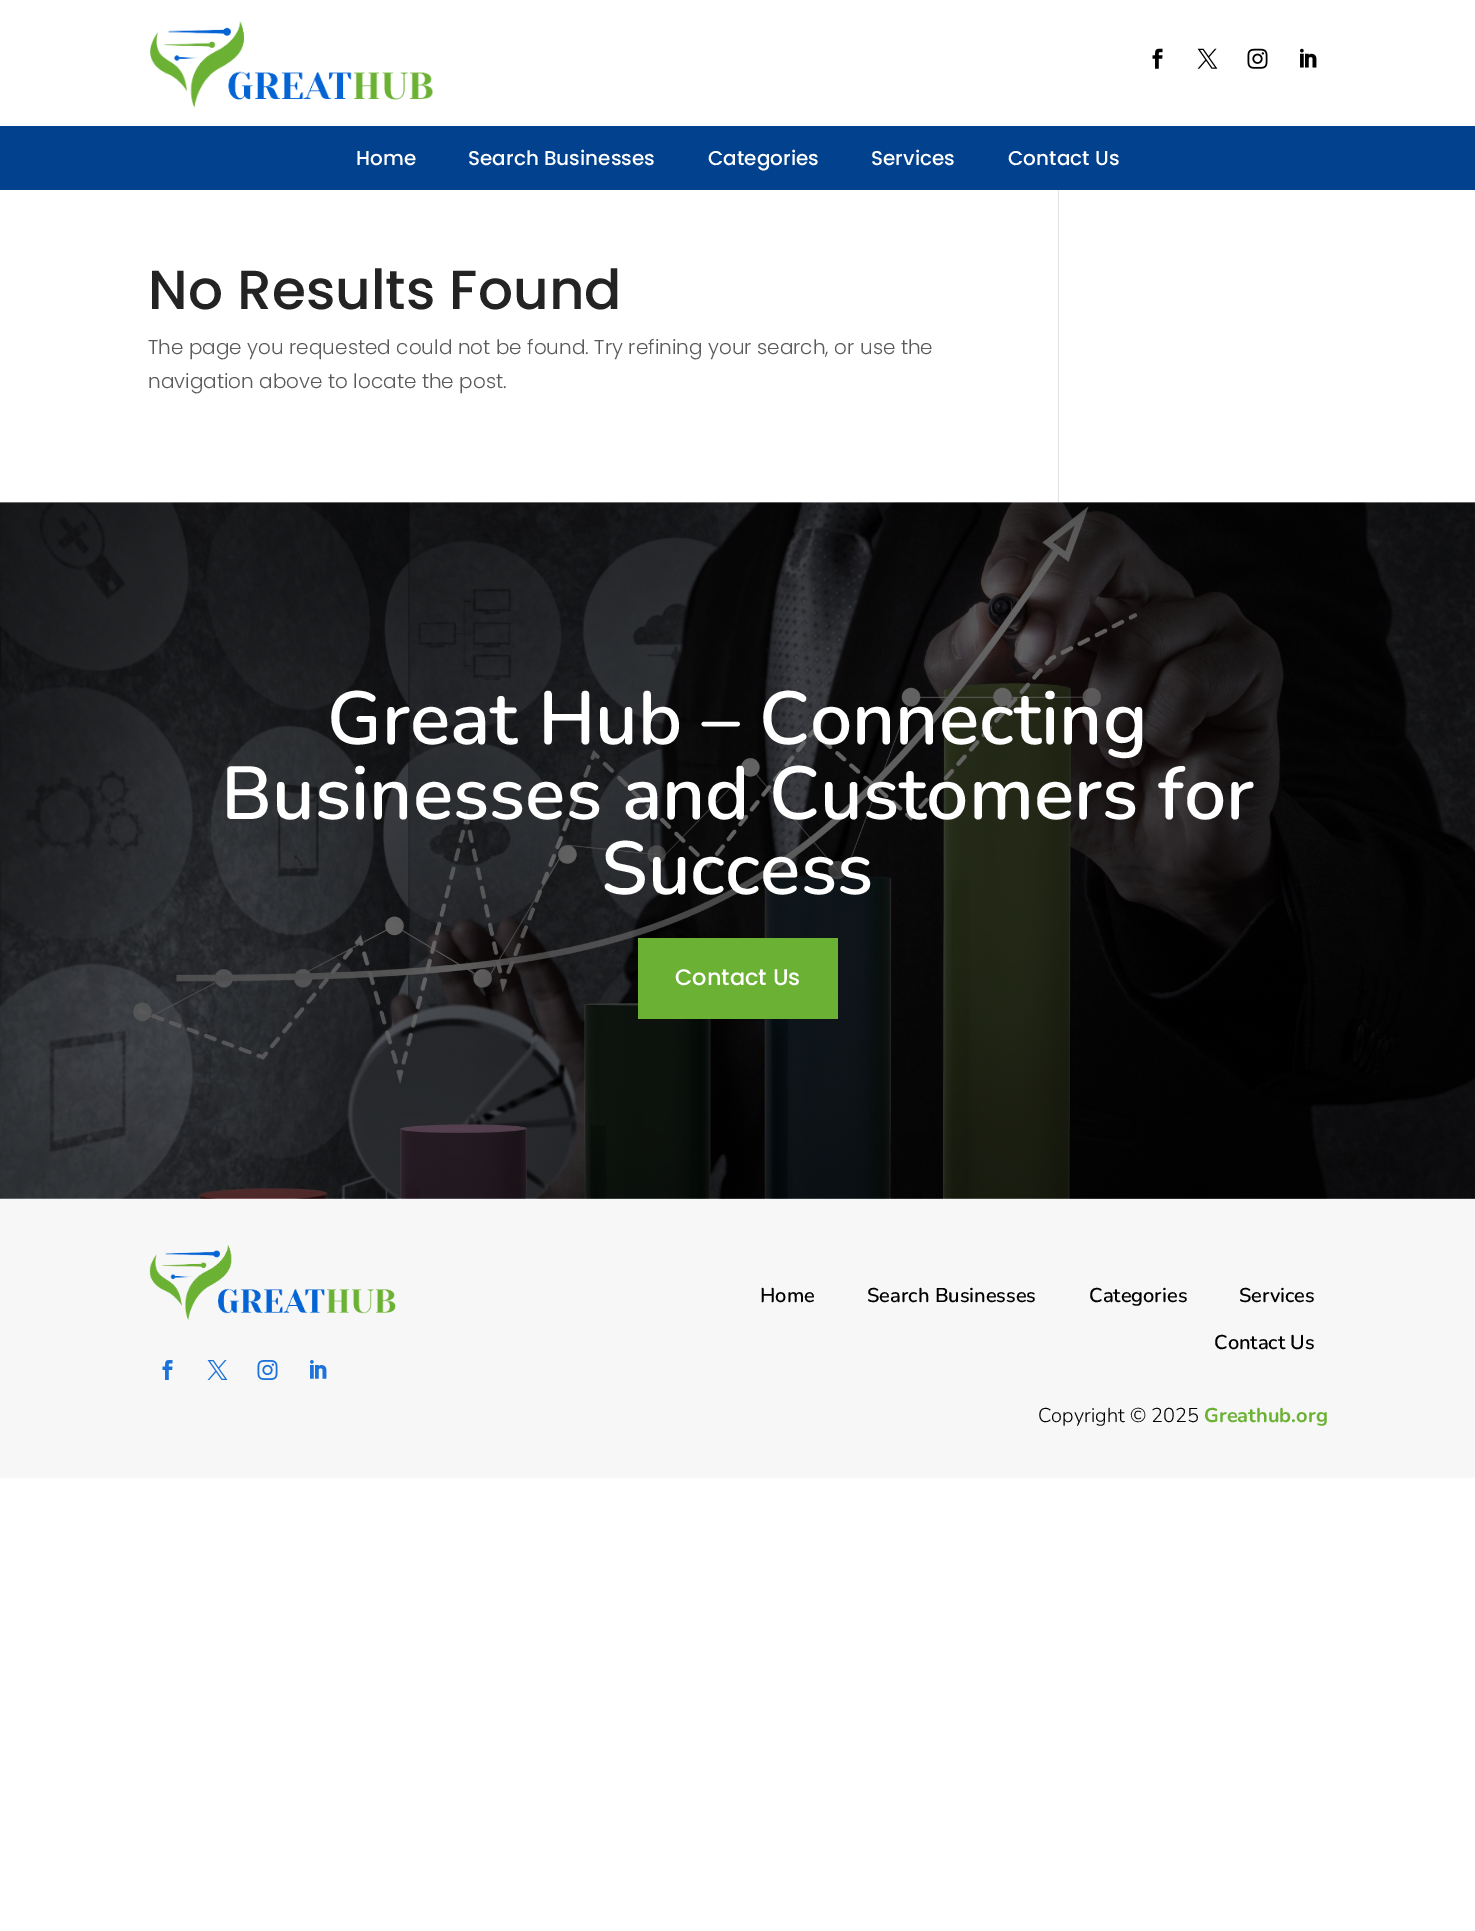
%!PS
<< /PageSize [1475 1931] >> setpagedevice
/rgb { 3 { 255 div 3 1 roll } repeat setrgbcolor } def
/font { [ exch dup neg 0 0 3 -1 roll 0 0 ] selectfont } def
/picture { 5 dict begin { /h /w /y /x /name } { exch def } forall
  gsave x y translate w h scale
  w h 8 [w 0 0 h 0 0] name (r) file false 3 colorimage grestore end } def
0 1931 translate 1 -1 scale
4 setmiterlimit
255 255 255 rgb
0 0 1475 1931 rectfill
(img/1.rgb) 150 20 283 88 picture
(img/2.rgb) 1152 48 11 21 picture
(img/3.rgb) 1197 48 21 21 picture
(img/4.rgb) 1247 48 21 21 picture
(img/5.rgb) 1300 48 17 20 picture
1 65 142 rgb
0 126 1475 64 rectfill
226 226 226 rgb
1058 190 1 313 rectfill
(img/6.rgb) 0 502 1475 697 picture
107 177 52 rgb
638 938 200 81 rectfill
247 247 247 rgb
0 1199 1475 279 rectfill
(img/7.rgb) 149 1244 247 76 picture
(img/8.rgb) 162 1360 11 20 picture
(img/9.rgb) 207 1360 21 20 picture
(img/10.rgb) 257 1360 21 20 picture
(img/11.rgb) 310 1360 17 19 picture
/Poppins-Medium 20 font
255 255 255 rgb
[
  [(Home) 356 165]
  [(Search Businesses) 468 165]
  [(Categories) 708 165]
  [(Services) 871 165]
  [(Contact Us) 1008 165]
] { aload pop moveto show } forall
/Poppins-Medium 55 font
35 35 35 rgb
148 309 moveto (No Results Found) show
/Poppins-Light 20 font
91 91 91 rgb
148 354 moveto (The page you requested could not be found. Try refining your search, or use the) show
148 388 moveto (navigation above to locate the post.) show
/Nunito-SemiBold 75 font
255 255 255 rgb
[
  [(Great Hub – Connecting) 327 744]
  [(Businesses and Customers for) 221 819]
  [(Success) 601 894]
] { aload pop moveto show } forall
/Poppins-Medium 22.5 font
675 985 moveto (Contact Us) show
/Nunito-SemiBold 20 font
0 0 0 rgb
[
  [(Home) 760 1302]
  [(Search Businesses) 867 1302]
  [(Categories) 1089 1302]
  [(Services) 1239 1302]
  [(Contact Us) 1214 1349]
] { aload pop moveto show } forall
/Nunito-Light 20 font
1038 1422 moveto (Copyright © 2025) show
/Nunito-Bold 20 font
107 177 52 rgb
1204 1422 moveto (Greathub.org) show
showpage
